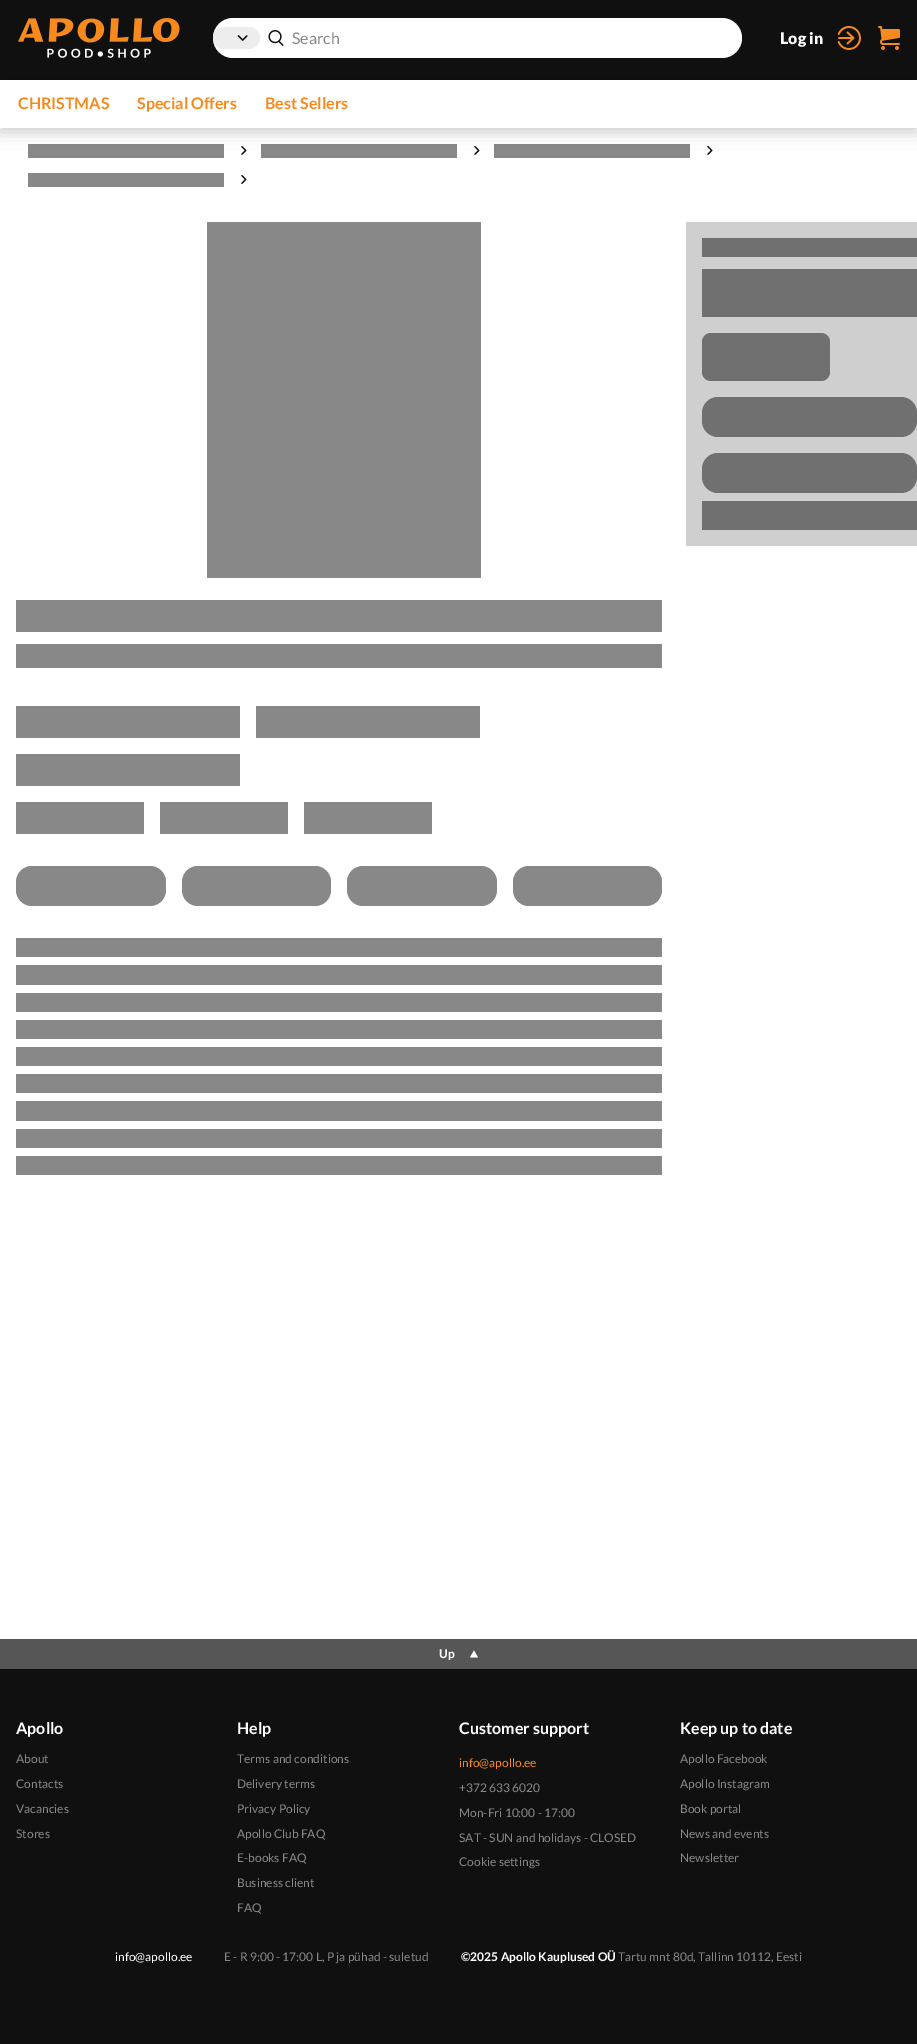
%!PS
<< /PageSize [917 2044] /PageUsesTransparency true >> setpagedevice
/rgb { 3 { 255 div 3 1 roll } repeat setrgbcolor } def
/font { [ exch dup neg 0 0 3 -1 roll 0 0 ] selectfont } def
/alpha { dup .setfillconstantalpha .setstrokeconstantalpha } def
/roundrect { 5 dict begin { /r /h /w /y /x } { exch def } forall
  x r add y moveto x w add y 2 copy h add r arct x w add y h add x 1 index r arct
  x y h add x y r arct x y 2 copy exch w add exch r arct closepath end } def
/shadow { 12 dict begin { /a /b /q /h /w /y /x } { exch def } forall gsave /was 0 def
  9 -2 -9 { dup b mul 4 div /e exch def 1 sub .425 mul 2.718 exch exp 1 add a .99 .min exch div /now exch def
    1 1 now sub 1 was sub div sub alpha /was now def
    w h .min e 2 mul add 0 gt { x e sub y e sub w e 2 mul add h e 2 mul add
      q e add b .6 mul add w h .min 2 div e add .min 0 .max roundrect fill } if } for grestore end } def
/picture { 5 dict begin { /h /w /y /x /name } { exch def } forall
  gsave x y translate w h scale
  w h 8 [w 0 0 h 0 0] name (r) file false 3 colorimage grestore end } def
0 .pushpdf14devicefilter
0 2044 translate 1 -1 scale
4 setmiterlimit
255 255 255 rgb
0 0 917 2044 rectfill
16 16 16 rgb
0 0 917 80 rectfill
(img/1.rgb) 18 18 162 40 picture
255 255 255 rgb
213 18 529 40 20 roundrect fill
237 237 237 rgb
213 27 47 22 11 roundrect fill
(img/2.rgb) 237 35 11 6 picture
(img/3.rgb) 268 30 16 16 picture
(img/4.rgb) 837 26 24 24 picture
(img/5.rgb) 878 26 22 24 picture
136 136 136 rgb
28 144 196 14 rectfill
(img/6.rgb) 241 146 6 9 picture
261 144 196 14 rectfill
(img/6.rgb) 474 146 6 9 picture
494 144 196 14 rectfill
(img/6.rgb) 707 146 6 9 picture
0 0 0 rgb
0 84 917 48 0 8 0.2 shadow
255 255 255 rgb
0 80 917 48 rectfill
136 136 136 rgb
28 173 196 14 rectfill
(img/6.rgb) 241 175 6 9 picture
[
  [207 222 274 356 136 136 136]
  [686 222 231 324 207 207 207]
  [702 238 215 19 112 112 112]
  [702 269 215 48 112 112 112]
] { aload pop rgb rectfill } forall
702 333 128 48 9 roundrect fill
702 397 215 40 16 roundrect fill
702 453 215 40 16 roundrect fill
[
  [702 501 215 29 112 112 112]
  [16 600 646 32 136 136 136]
  [16 644 646 24 136 136 136]
  [16 706 224 32 136 136 136]
  [256 706 224 32 136 136 136]
  [16 754 224 32 136 136 136]
  [16 802 128 32 136 136 136]
  [160 802 128 32 136 136 136]
  [304 802 128 32 136 136 136]
] { aload pop rgb rectfill } forall
16 866 150 40 16 roundrect fill
182 866 149 40 16 roundrect fill
347 866 150 40 16 roundrect fill
513 866 149 40 16 roundrect fill
[
  [16 938 646 19 136 136 136]
  [16 965 646 20 136 136 136]
  [16 993 646 19 136 136 136]
  [16 1020 646 19 136 136 136]
  [16 1047 646 19 136 136 136]
  [16 1074 646 19 136 136 136]
  [16 1101 646 20 136 136 136]
  [16 1129 646 19 136 136 136]
  [16 1156 646 19 136 136 136]
  [0 1639 917 30 86 86 86]
] { aload pop rgb rectfill } forall
255 255 255 rgb
474 1650.5 moveto 470 1657.5 lineto 478 1657.5 lineto closepath fill
16 16 16 rgb
0 1669 917 375 rectfill
/Lato-Regular 16 font
136 136 136 rgb
292 44 moveto (Search) show
/Lato-Black 16 font
255 255 255 rgb
780 44 moveto (Log in) show
/Lato-Bold 16 font
246 138 31 rgb
[
  [(CHRISTMAS) 18 109]
  [(Special Offers) 137 109]
  [(Best Sellers) 265 109]
] { aload pop moveto show } forall
/Lato-Bold 12 font
255 255 255 rgb
439 1658 moveto (Up) show
/Lato-Bold 16 font
16 1734 moveto (Apollo) show
/Lato-Regular 12 font
136 136 136 rgb
[
  [(About) 16 1763]
  [(Contacts) 16 1788]
  [(Vacancies) 16 1813]
  [(Stores) 16 1838]
] { aload pop moveto show } forall
/Lato-Bold 16 font
255 255 255 rgb
237 1734 moveto (Help) show
/Lato-Regular 12 font
136 136 136 rgb
[
  [(Terms and conditions) 237 1763]
  [(Delivery terms) 237 1788]
  [(Privacy Policy) 237 1813]
  [(Apollo Club FAQ) 237 1838]
  [(E-books FAQ) 237 1862]
  [(Business client) 237 1887]
  [(FAQ) 237 1912]
] { aload pop moveto show } forall
/Lato-Bold 16 font
255 255 255 rgb
459 1734 moveto (Customer support) show
/Lato-Regular 12 font
246 138 31 rgb
459 1767 moveto (info@apollo.ee) show
136 136 136 rgb
[
  [(+372 633 6020) 459 1792]
  [(Mon-Fri 10:00 - 17:00) 459 1817]
  [(SAT - SUN and holidays - CLOSED) 459 1842]
  [(Cookie settings) 459 1866]
] { aload pop moveto show } forall
/Lato-Bold 16 font
255 255 255 rgb
680 1734 moveto (Keep up to date) show
/Lato-Regular 12 font
136 136 136 rgb
[
  [(Apollo Facebook) 680 1763]
  [(Apollo Instagram) 680 1788]
  [(Book portal) 680 1813]
  [(News and events) 680 1838]
  [(Newsletter) 680 1862]
] { aload pop moveto show } forall
255 255 255 rgb
115 1961 moveto (info@apollo.ee) show
136 136 136 rgb
224 1961 moveto (E - R 9:00 - 17:00 L, P ja pühad - suletud) show
/Lato-Bold 12 font
255 255 255 rgb
461 1961 moveto (©2025 Apollo Kauplused OÜ) show
/Lato-Regular 12 font
136 136 136 rgb
618 1961 moveto (Tartu mnt 80d, Tallinn 10112, Eesti) show
.poppdf14devicefilter showpage
